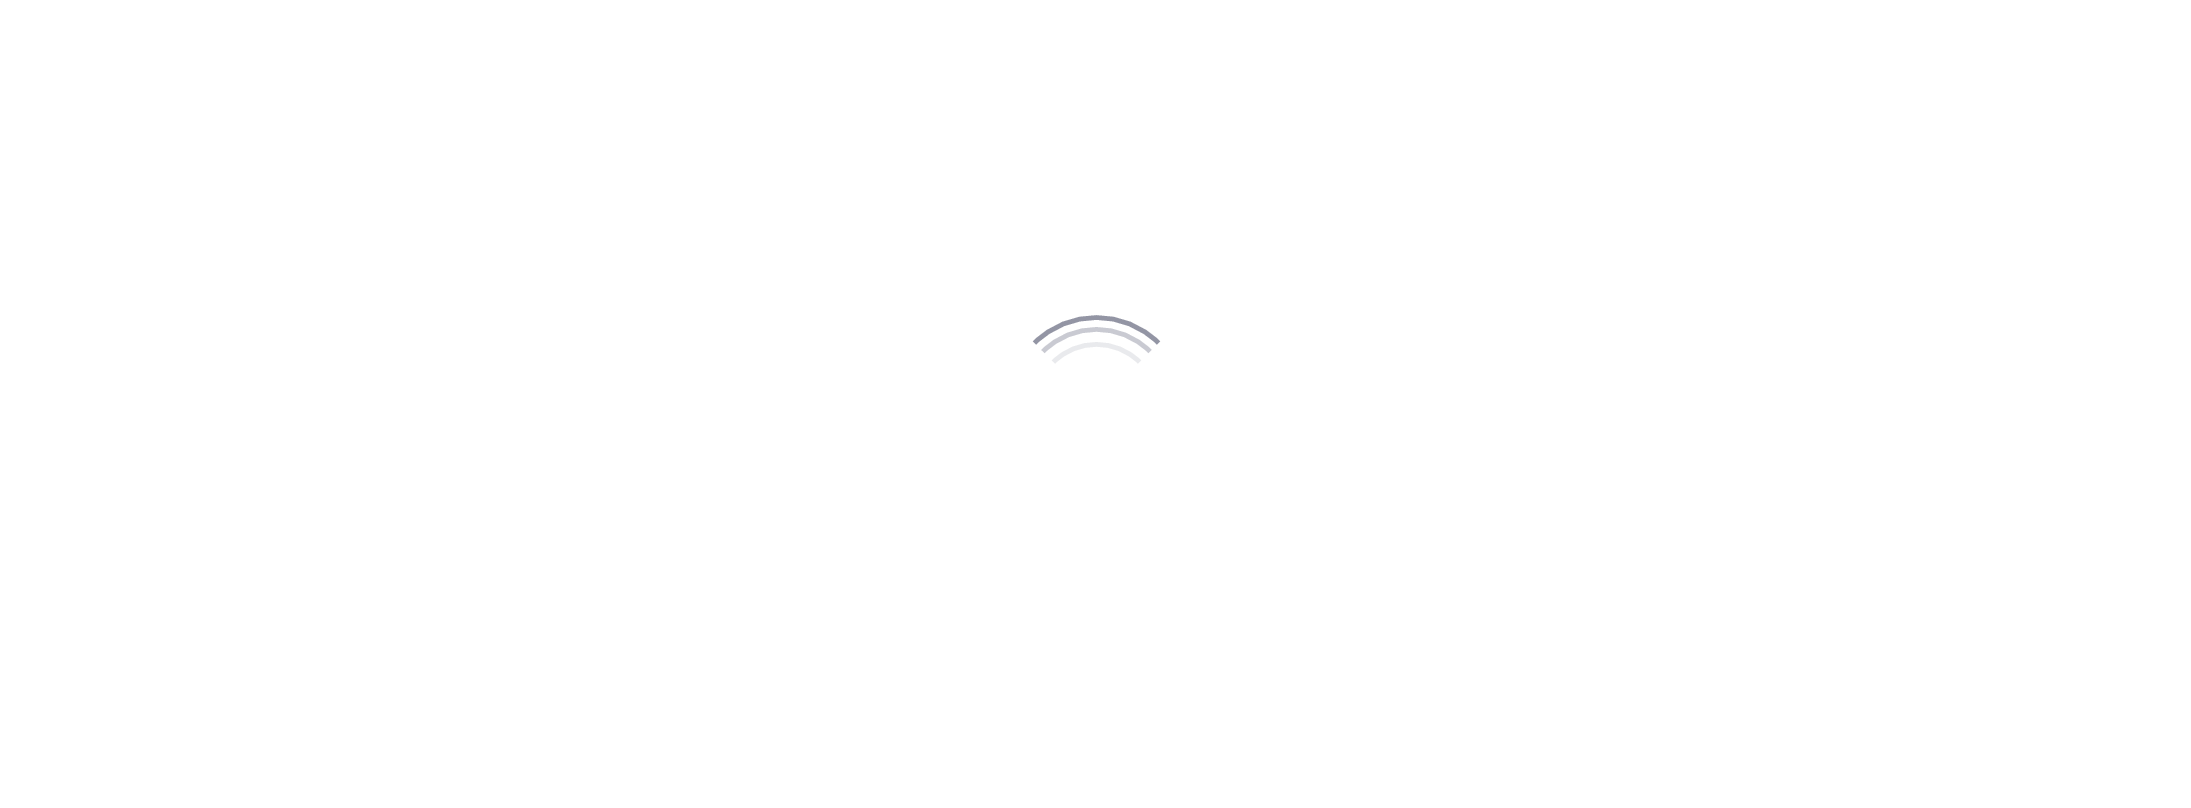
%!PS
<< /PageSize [2191 808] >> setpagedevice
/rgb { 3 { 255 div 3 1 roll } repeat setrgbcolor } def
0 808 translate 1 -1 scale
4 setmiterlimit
255 255 255 rgb
0 0 2191 808 rectfill
147 149 164 rgb
4.5 setlinewidth
1034.5 343 moveto 1068.5 309 1124.5 309 1158.5 343 curveto stroke
201 202 210 rgb
1043 351.5 moveto 1072.5 322 1120.5 322 1150 351.5 curveto stroke
233 234 237 rgb
1053.5 362 moveto 1077 338.5 1116 338.5 1139.5 362 curveto stroke
showpage
